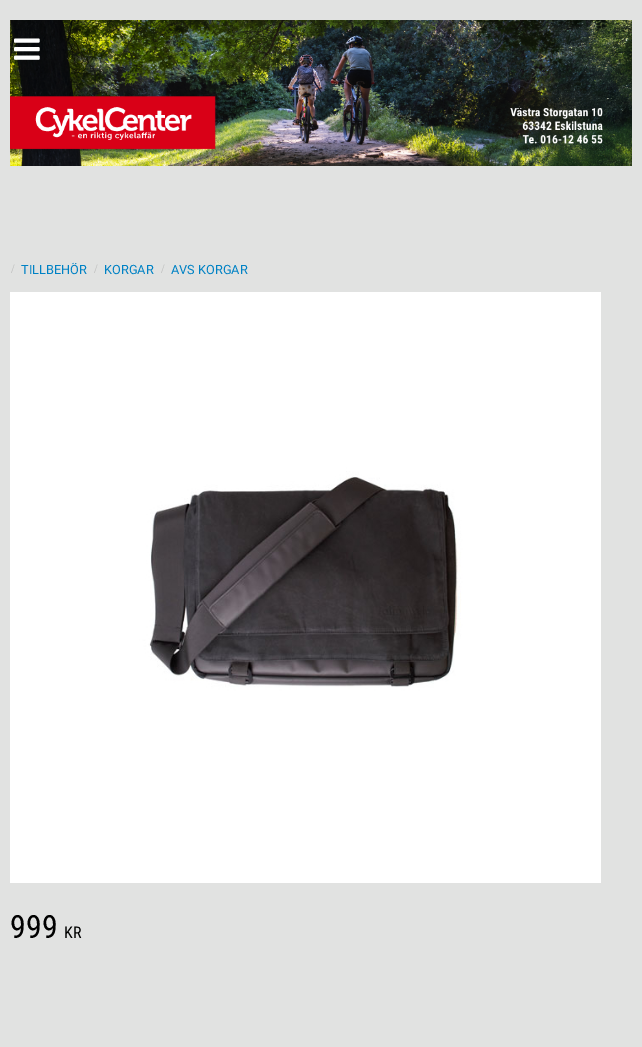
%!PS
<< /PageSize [642 1047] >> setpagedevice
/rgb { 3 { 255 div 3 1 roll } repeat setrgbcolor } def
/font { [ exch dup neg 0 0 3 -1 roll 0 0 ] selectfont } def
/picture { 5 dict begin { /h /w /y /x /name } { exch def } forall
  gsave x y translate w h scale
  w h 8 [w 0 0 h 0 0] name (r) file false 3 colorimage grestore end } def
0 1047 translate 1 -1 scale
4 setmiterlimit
225 226 225 rgb
0 0 642 1047 rectfill
(img/1.rgb) 10 20 622 146 picture
(img/2.rgb) 14 38 26 22 picture
(img/3.rgb) 10 292 591 591 picture
/LiberationSerif-Regular 12.75 font
189 189 189 rgb
11 273 moveto (/) show
/Roboto-Regular 12.75 font
0 130 197 rgb
21 274 moveto (TILLBEHÖR) show
/LiberationSerif-Regular 12.75 font
189 189 189 rgb
94 273 moveto (/) show
/Roboto-Regular 12.75 font
0 130 197 rgb
104 274 moveto (KORGAR) show
/LiberationSerif-Regular 12.75 font
189 189 189 rgb
161 273 moveto (/) show
/Roboto-Regular 12.75 font
0 130 197 rgb
171 274 moveto (AVS KORGAR) show
/RobotoCondensed-Regular 32 font
0 0 0 rgb
10 938 moveto (999) show
/RobotoCondensed-Regular 16 font
64 938 moveto (KR) show
showpage
